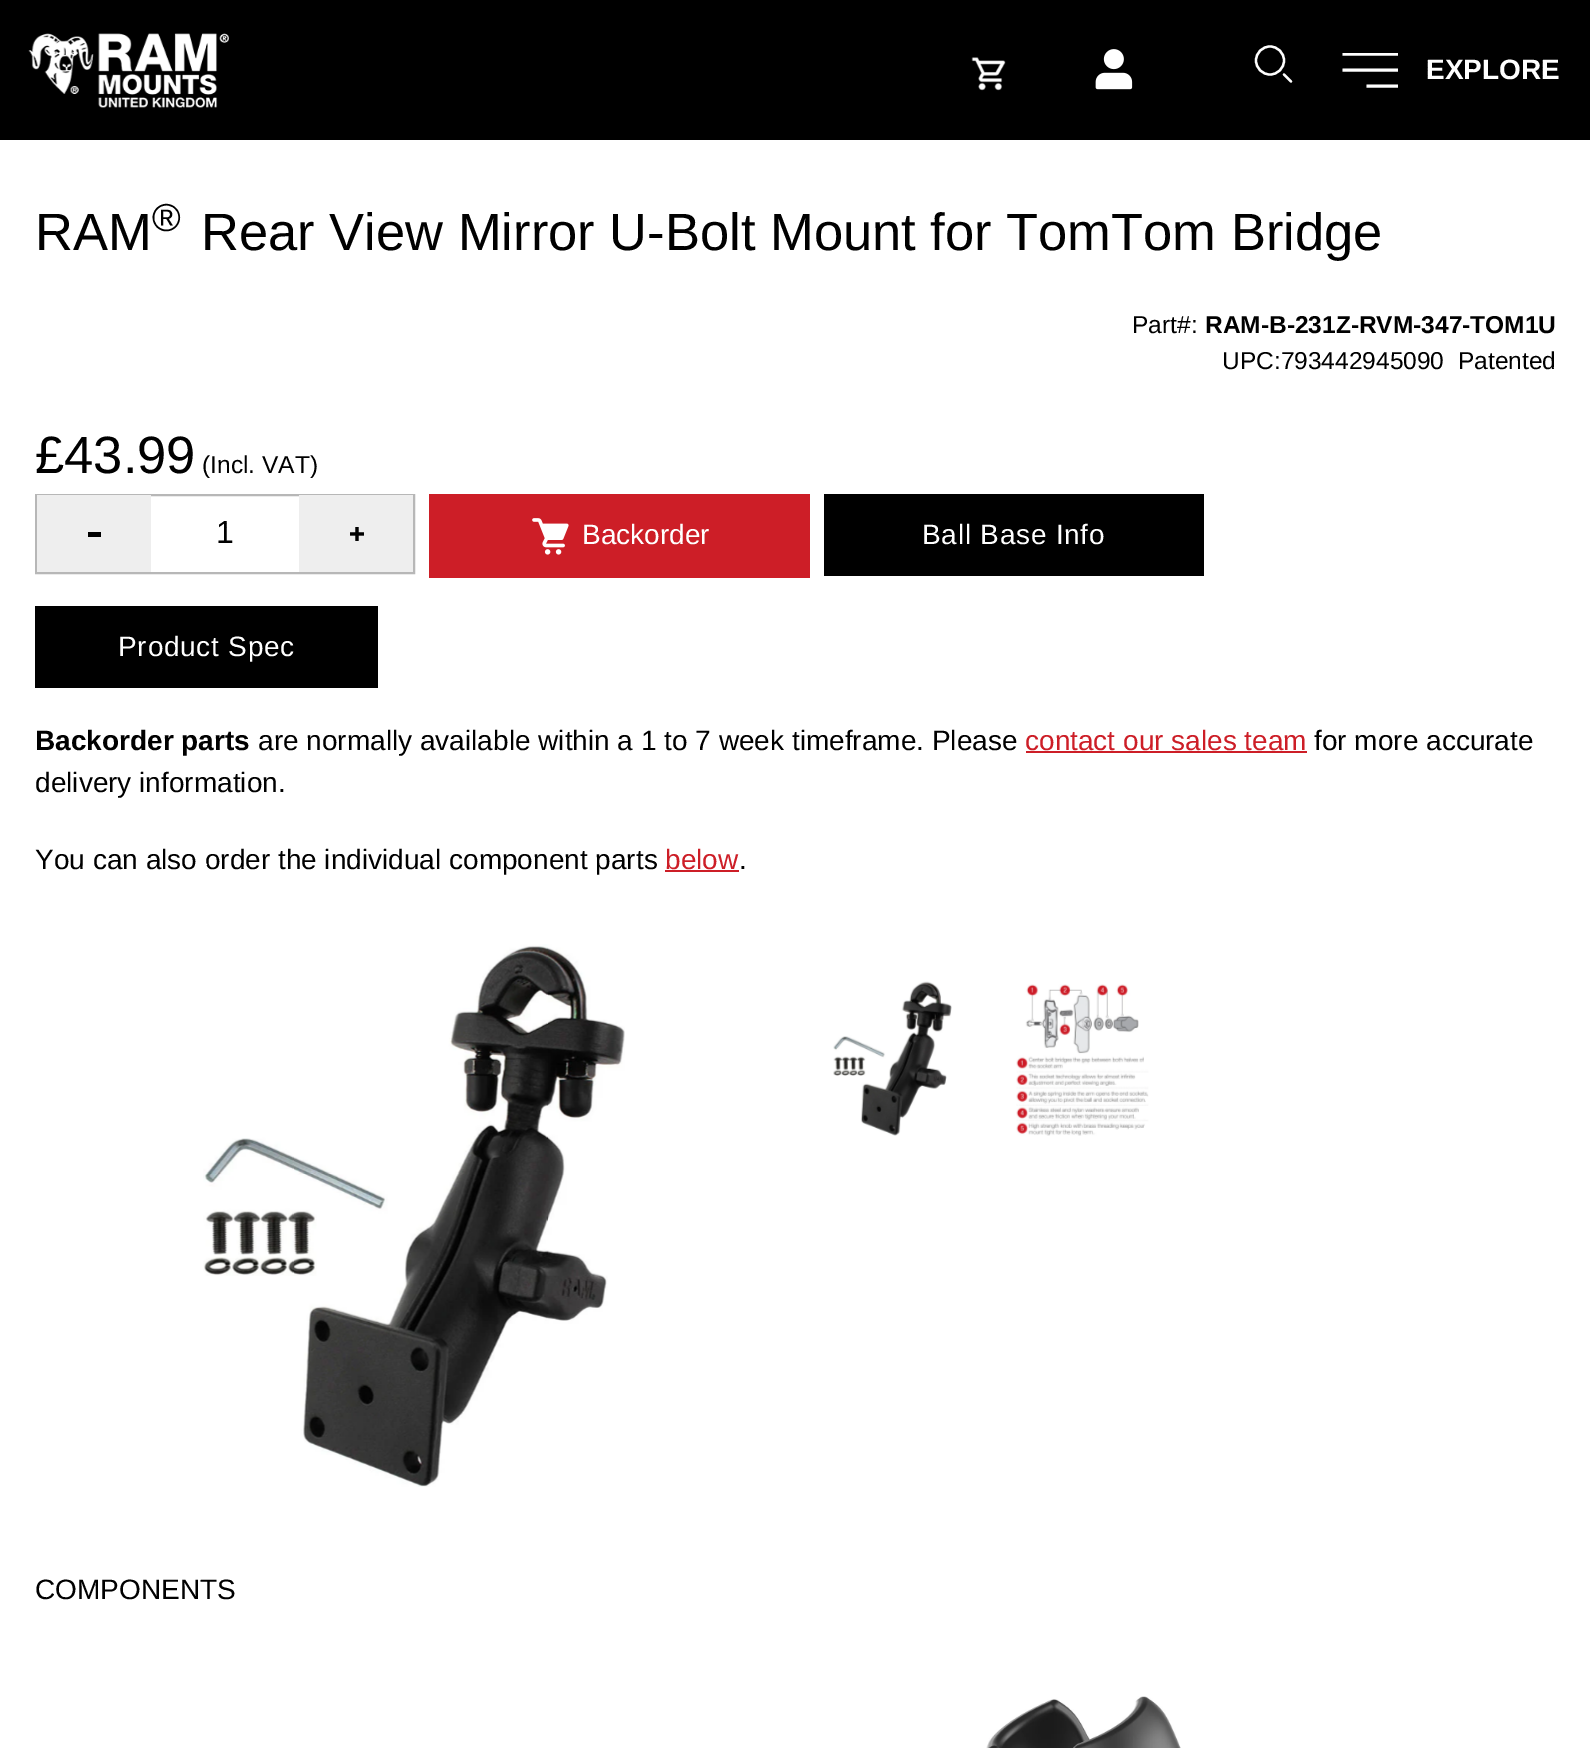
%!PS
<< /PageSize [1590 1748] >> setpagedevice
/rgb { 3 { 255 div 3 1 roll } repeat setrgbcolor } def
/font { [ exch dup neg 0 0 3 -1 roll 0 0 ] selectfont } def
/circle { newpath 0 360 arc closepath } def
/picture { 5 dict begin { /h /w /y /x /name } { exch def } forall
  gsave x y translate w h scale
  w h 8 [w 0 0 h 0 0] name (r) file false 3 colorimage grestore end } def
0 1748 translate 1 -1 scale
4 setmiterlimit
255 255 255 rgb
0 0 1590 1748 rectfill
0 0 0 rgb
0 0 1590 140 rectfill
(img/1.rgb) 28 33 201 75 picture
(img/2.rgb) 971 57 35 34 picture
(img/3.rgb) 1095 49 38 41 picture
255 255 255 rgb
2.3 setlinewidth
1270 60.5 14 circle stroke
1 setlinecap
1291 81.5 moveto 1284 74.5 lineto stroke
gsave
1342 53 56 35 rectclip
2.9 setlinewidth
0 setlinecap
1342.5 54 moveto 1398 54 lineto stroke
grestore
2.9 setlinewidth
0 setlinecap
1342.5 70 moveto 1398 70 lineto 1366.5 86 moveto 1398 86 lineto stroke
183 183 183 rgb
2 setlinewidth
36 495 378 78 rectstroke
[
  [37 495 114 77 238 238 238]
  [88 532 13 5 0 0 0]
  [299 495 114 77 238 238 238]
] { aload pop rgb rectfill } forall
(img/4.rgb) 350 527 14 14 picture
205 30 39 rgb
429 494 381 84 rectfill
(img/5.rgb) 532 518 37 37 picture
[
  [824 494 380 82 0 0 0]
  [35 606 343 82 0 0 0]
  [1026 751 281 2 205 30 39]
  [665 870 74 2 205 30 39]
] { aload pop rgb rectfill } forall
(img/6.rgb) 203 944 422 543 picture
(img/7.rgb) 833 981 119 155 picture
(img/8.rgb) 1016 984 133 152 picture
(img/9.rgb) 986 1696 195 52 picture
/LiberationSans-Bold 28 font
255 255 255 rgb
1426 79 moveto (EXPLORE) show
/LiberationSans-Regular 52.5 font
0 0 0 rgb
35 250 moveto (RAM) show
/LiberationSans-Regular 39 font
152 231 moveto (®) show
/LiberationSans-Regular 52.5 font
201 250 moveto (Rear View Mirror U-Bolt Mount for TomTom Bridge) show
/LiberationSans-Regular 24.5 font
1132 333 moveto (Part#:) show
/LiberationSans-Bold 24.5 font
1205 333 moveto (RAM-B-231Z-RVM-347-TOM1U) show
/LiberationSans-Regular 24.5 font
1222 369 moveto (UPC:793442945090) show
1458 369 moveto (Patented) show
/LiberationSans-Regular 52.5 font
35 473 moveto (£43.99) show
/LiberationSans-Regular 24.5 font
202 473 moveto (\(Incl. VAT\)) show
/LiberationSans-Regular 32 font
216 543 moveto 1 0 (1) ashow
/LiberationSans-Regular 28 font
255 255 255 rgb
582 544 moveto (Backorder) show
922 544 moveto 0.75 0 (Ball Base Info) ashow
118 656 moveto 0.75 0 (Product Spec) ashow
/LiberationSans-Bold 28 font
0 0 0 rgb
35 750 moveto (Backorder parts) show
/LiberationSans-Regular 28 font
258 750 moveto (are normally available within a 1 to 7 week timeframe. Please) show
205 30 39 rgb
1025 750 moveto (contact our sales team) show
0 0 0 rgb
[
  [(for more accurate) 1314 750]
  [(delivery information.) 35 792]
  [(You can also order the individual component parts) 35 869]
] { aload pop moveto show } forall
205 30 39 rgb
665 869 moveto (below) show
0 0 0 rgb
739 869 moveto (.) show
255 255 255 rgb
3.1 setlinewidth
2 setlinecap
195.5 874.5 moveto 205 864.5 lineto stroke
0 0 0 rgb
35 1599 moveto (COMPONENTS) show
showpage
